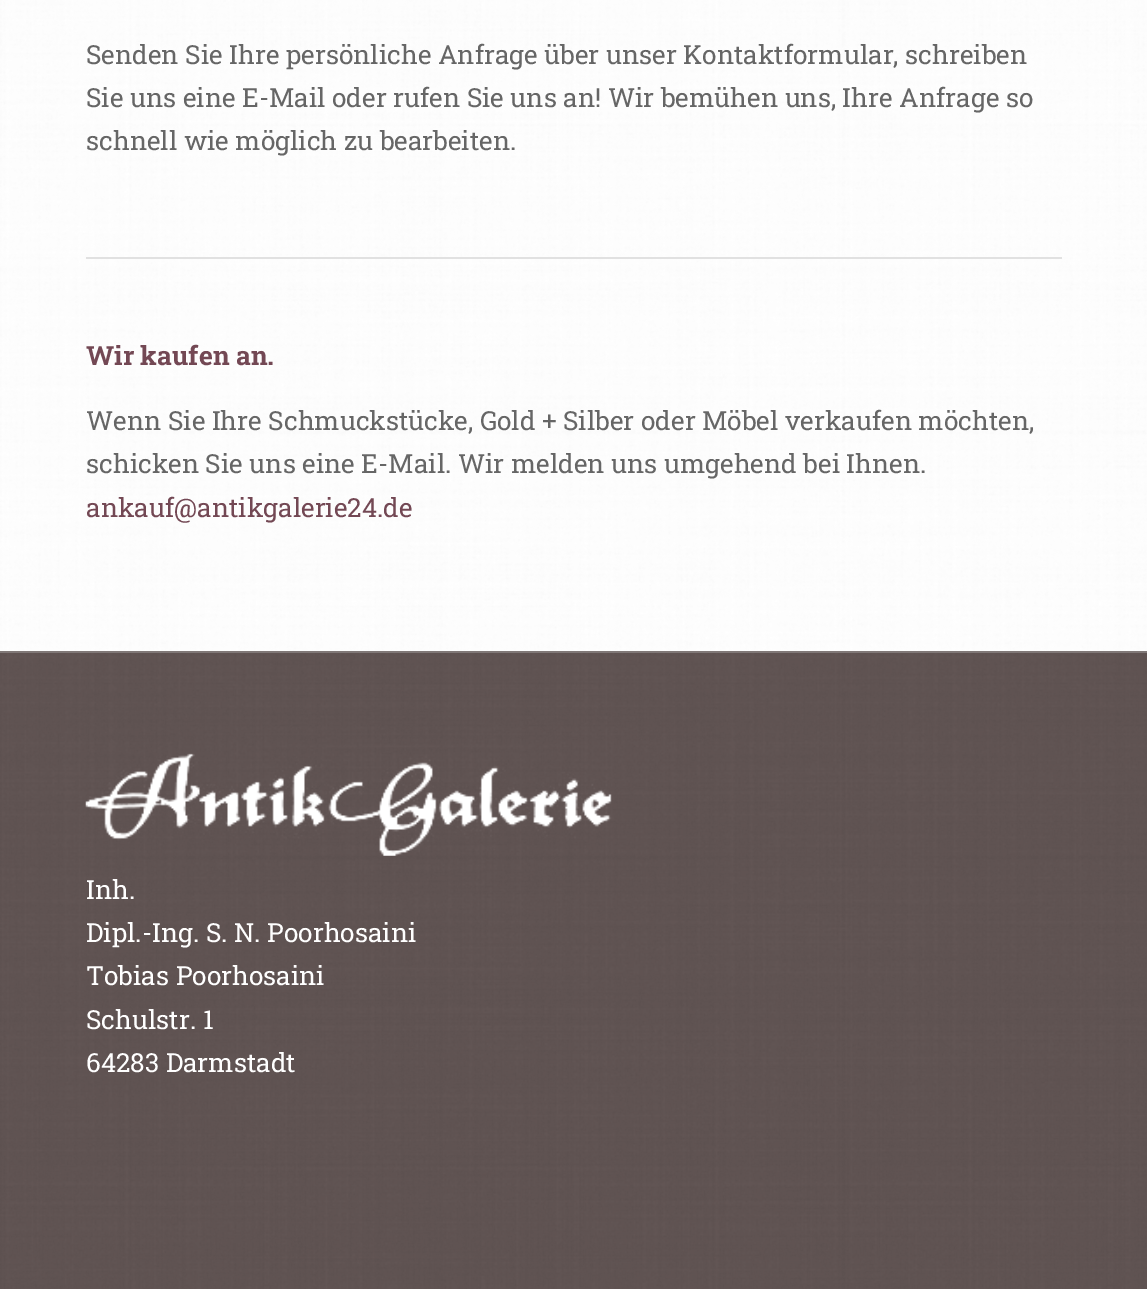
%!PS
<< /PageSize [1147 1289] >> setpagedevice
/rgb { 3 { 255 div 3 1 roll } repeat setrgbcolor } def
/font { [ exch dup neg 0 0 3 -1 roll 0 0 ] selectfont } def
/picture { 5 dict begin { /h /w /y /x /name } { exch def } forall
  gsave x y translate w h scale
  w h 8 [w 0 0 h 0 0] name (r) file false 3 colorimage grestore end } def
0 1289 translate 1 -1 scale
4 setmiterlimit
255 255 255 rgb
0 0 1147 1289 rectfill
(img/1.rgb) 0 0 1147 651 picture
225 225 225 rgb
86 257 976 2 rectfill
99 86 85 rgb
0 653 1147 636 rectfill
(img/2.rgb) 0 653 1147 636 picture
128 120 119 rgb
0 651 1147 2 rectfill
(img/3.rgb) 85 753 527 103 picture
/RobotoSlab-Regular 26.25 font
102 102 102 rgb
[
  [(Senden Sie Ihre persönliche Anfrage über unser Kontaktformular, schreiben) 86 64]
  [(Sie uns eine E-Mail oder rufen Sie uns an! Wir bemühen uns, Ihre Anfrage so) 86 107]
  [(schnell wie möglich zu bearbeiten.) 86 150]
] { aload pop moveto show } forall
/RobotoSlab-Bold 26.25 font
115 72 84 rgb
86 365 moveto (Wir kaufen an.) show
/RobotoSlab-Regular 26.25 font
102 102 102 rgb
86 430 moveto (Wenn Sie Ihre Schmuckstücke, Gold + Silber oder Möbel verkaufen möchten,) show
86 473 moveto (schicken Sie uns eine E-Mail. Wir melden uns umgehend bei Ihnen.) show
115 72 84 rgb
86 517 moveto (ankauf@antikgalerie24.de) show
255 255 255 rgb
[
  [(Inh.) 86 899]
  [(Dipl.-Ing. S. N. Poorhosaini) 86 942]
  [(Tobias Poorhosaini) 86 985]
  [(Schulstr. 1) 86 1029]
  [(64283 Darmstadt) 86 1072]
] { aload pop moveto show } forall
showpage
